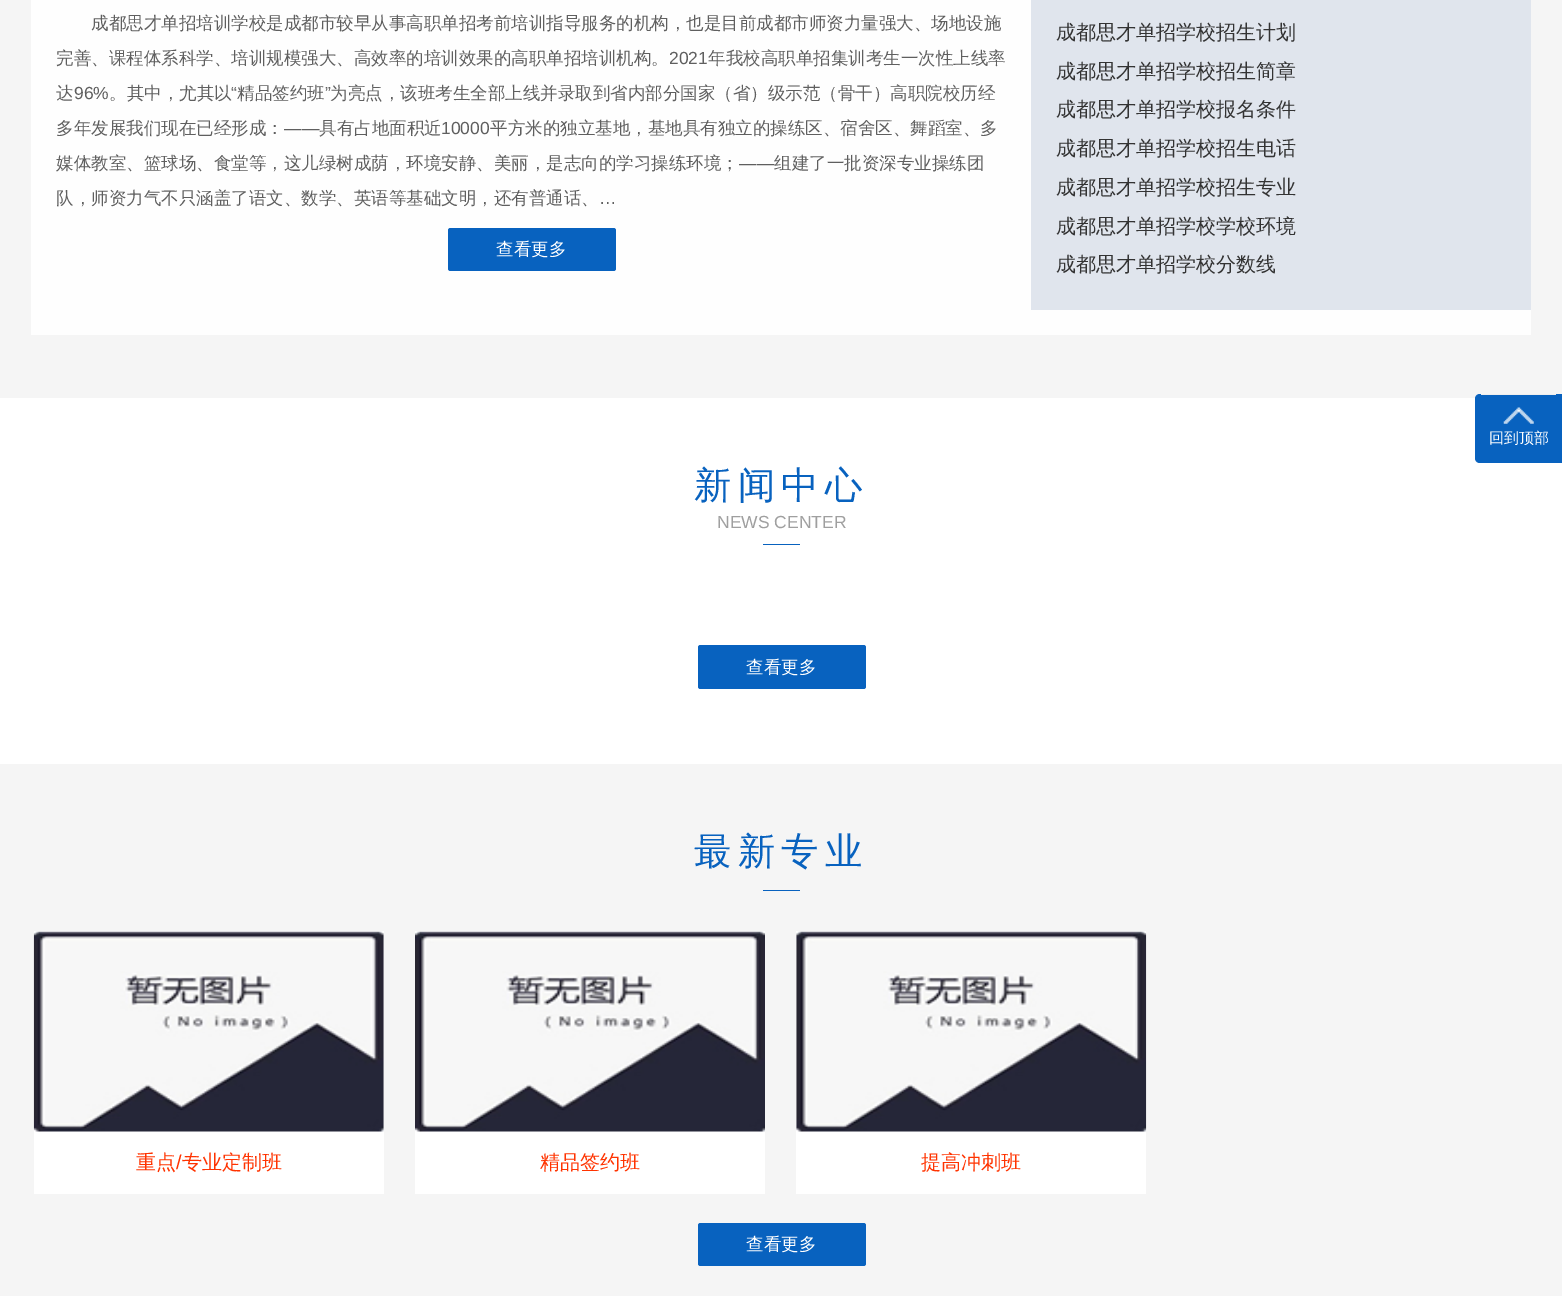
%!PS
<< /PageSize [1562 1296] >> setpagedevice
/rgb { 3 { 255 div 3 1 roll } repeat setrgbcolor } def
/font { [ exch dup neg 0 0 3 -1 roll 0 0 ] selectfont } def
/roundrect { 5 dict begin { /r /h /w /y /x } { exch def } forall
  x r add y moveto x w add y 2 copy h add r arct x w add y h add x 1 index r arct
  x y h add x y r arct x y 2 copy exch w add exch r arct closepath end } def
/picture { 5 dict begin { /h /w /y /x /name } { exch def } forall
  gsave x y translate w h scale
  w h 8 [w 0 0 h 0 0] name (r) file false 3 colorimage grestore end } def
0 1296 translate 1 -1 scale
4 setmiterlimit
245 245 245 rgb
0 0 1562 1296 rectfill
254 254 254 rgb
31 0 1500 335 rectfill
8 98 191 rgb
448 228 168 43 2.5 roundrect fill
224 229 237 rgb
1031 0 500 310 rectfill
255 255 255 rgb
0 398 1562 366 rectfill
8 98 191 rgb
1480 394 moveto 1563 394 lineto 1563 463 lineto 1480 463 lineto 1477 463 1475 461 1475 458 curveto 1475 399 lineto 1475 396 1477 394 1480 394 curveto closepath fill
238 238 238 rgb
1481 394 75 1 rectfill
(img/1.rgb) 1503 407 31 17 picture
8 98 191 rgb
763 544 37 1 rectfill
698 645 168 44 2.5 roundrect fill
763 890 37 1 rectfill
255 255 255 rgb
34 931 350 263 rectfill
(img/2.rgb) 33 931 351 201 picture
415 931 350 263 rectfill
(img/3.rgb) 415 931 350 201 picture
796 931 350 263 rectfill
(img/4.rgb) 796 931 351 201 picture
8 98 191 rgb
698 1223 168 43 2.5 roundrect fill
/WenQuanYiZenHei-Medium 17.5 font
95 95 95 rgb
91 29 moveto (成都思才单招培训学校是成都市较早从事高职单招考前培训指导服务的机构，也是目前成都市师资力量强大、场地设施) show
56 64 moveto (完善、课程体系科学、培训规模强大、高效率的培训效果的高职单招培训机构。) show
/LiberationSans-Regular 17.5 font
669 64 moveto (2021) show
/WenQuanYiZenHei-Medium 17.5 font
708 64 moveto (年我校高职单招集训考生一次性上线率) show
56 99 moveto (达) show
/LiberationSans-Regular 17.5 font
74 99 moveto (96%) show
/WenQuanYiZenHei-Medium 17.5 font
109 99 moveto (。其中，尤其以) show
/LiberationSans-Regular 17.5 font
231 99 moveto (“) show
/WenQuanYiZenHei-Medium 17.5 font
237 99 moveto (精品签约班) show
/LiberationSans-Regular 17.5 font
325 99 moveto (”) show
/WenQuanYiZenHei-Medium 17.5 font
330 99 moveto (为亮点，该班考生全部上线并录取到省内部分国家（省）级示范（骨干）高职院校历经) show
56 134 moveto (多年发展我们现在已经形成：) show
/LiberationSans-Regular 17.5 font
284 134 moveto (——) show
/WenQuanYiZenHei-Medium 17.5 font
319 134 moveto (具有占地面积近) show
/LiberationSans-Regular 17.5 font
441 134 moveto (10000) show
/WenQuanYiZenHei-Medium 17.5 font
490 134 moveto (平方米的独立基地，基地具有独立的操练区、宿舍区、舞蹈室、多) show
56 169 moveto (媒体教室、篮球场、食堂等，这儿绿树成荫，环境安静、美丽，是志向的学习操练环境；) show
/LiberationSans-Regular 17.5 font
739 169 moveto (——) show
/WenQuanYiZenHei-Medium 17.5 font
774 169 moveto (组建了一批资深专业操练团) show
56 204 moveto (队，师资力气不只涵盖了语文、数学、英语等基础文明，还有普通话、) show
/LiberationSans-Regular 17.5 font
599 204 moveto (…) show
/WenQuanYiZenHei-Medium 17.5 font
255 255 255 rgb
496 255 moveto (查看更多) show
/WenQuanYiZenHei-Medium 20 font
51 51 51 rgb
[
  [(成都思才单招学校招生计划) 1056 39]
  [(成都思才单招学校招生简章) 1056 78]
  [(成都思才单招学校报名条件) 1056 116]
  [(成都思才单招学校招生电话) 1056 155]
  [(成都思才单招学校招生专业) 1056 194]
  [(成都思才单招学校学校环境) 1056 233]
  [(成都思才单招学校分数线) 1056 271]
] { aload pop moveto show } forall
/WenQuanYiZenHei-Medium 15 font
255 255 255 rgb
1489 443 moveto (回到顶部) show
/WenQuanYiZenHei-Medium 37.5 font
8 98 191 rgb
694 498 moveto 6 0 (新闻中心) ashow
/LiberationSans-Regular 17.5 font
159 159 159 rgb
717 528 moveto (NEWS CENTER) show
/WenQuanYiZenHei-Medium 17.5 font
255 255 255 rgb
746 673 moveto (查看更多) show
/WenQuanYiZenHei-Medium 37.5 font
8 98 191 rgb
694 864 moveto 6 0 (最新专业) ashow
/WenQuanYiZenHei-Medium 20 font
255 51 0 rgb
136 1169 moveto (重点) show
/LiberationSans-Regular 20 font
176 1169 moveto (/) show
/WenQuanYiZenHei-Medium 20 font
[
  [(专业定制班) 182 1169]
  [(精品签约班) 540 1169]
  [(提高冲刺班) 921 1169]
] { aload pop moveto show } forall
/WenQuanYiZenHei-Medium 17.5 font
255 255 255 rgb
746 1250 moveto (查看更多) show
showpage
